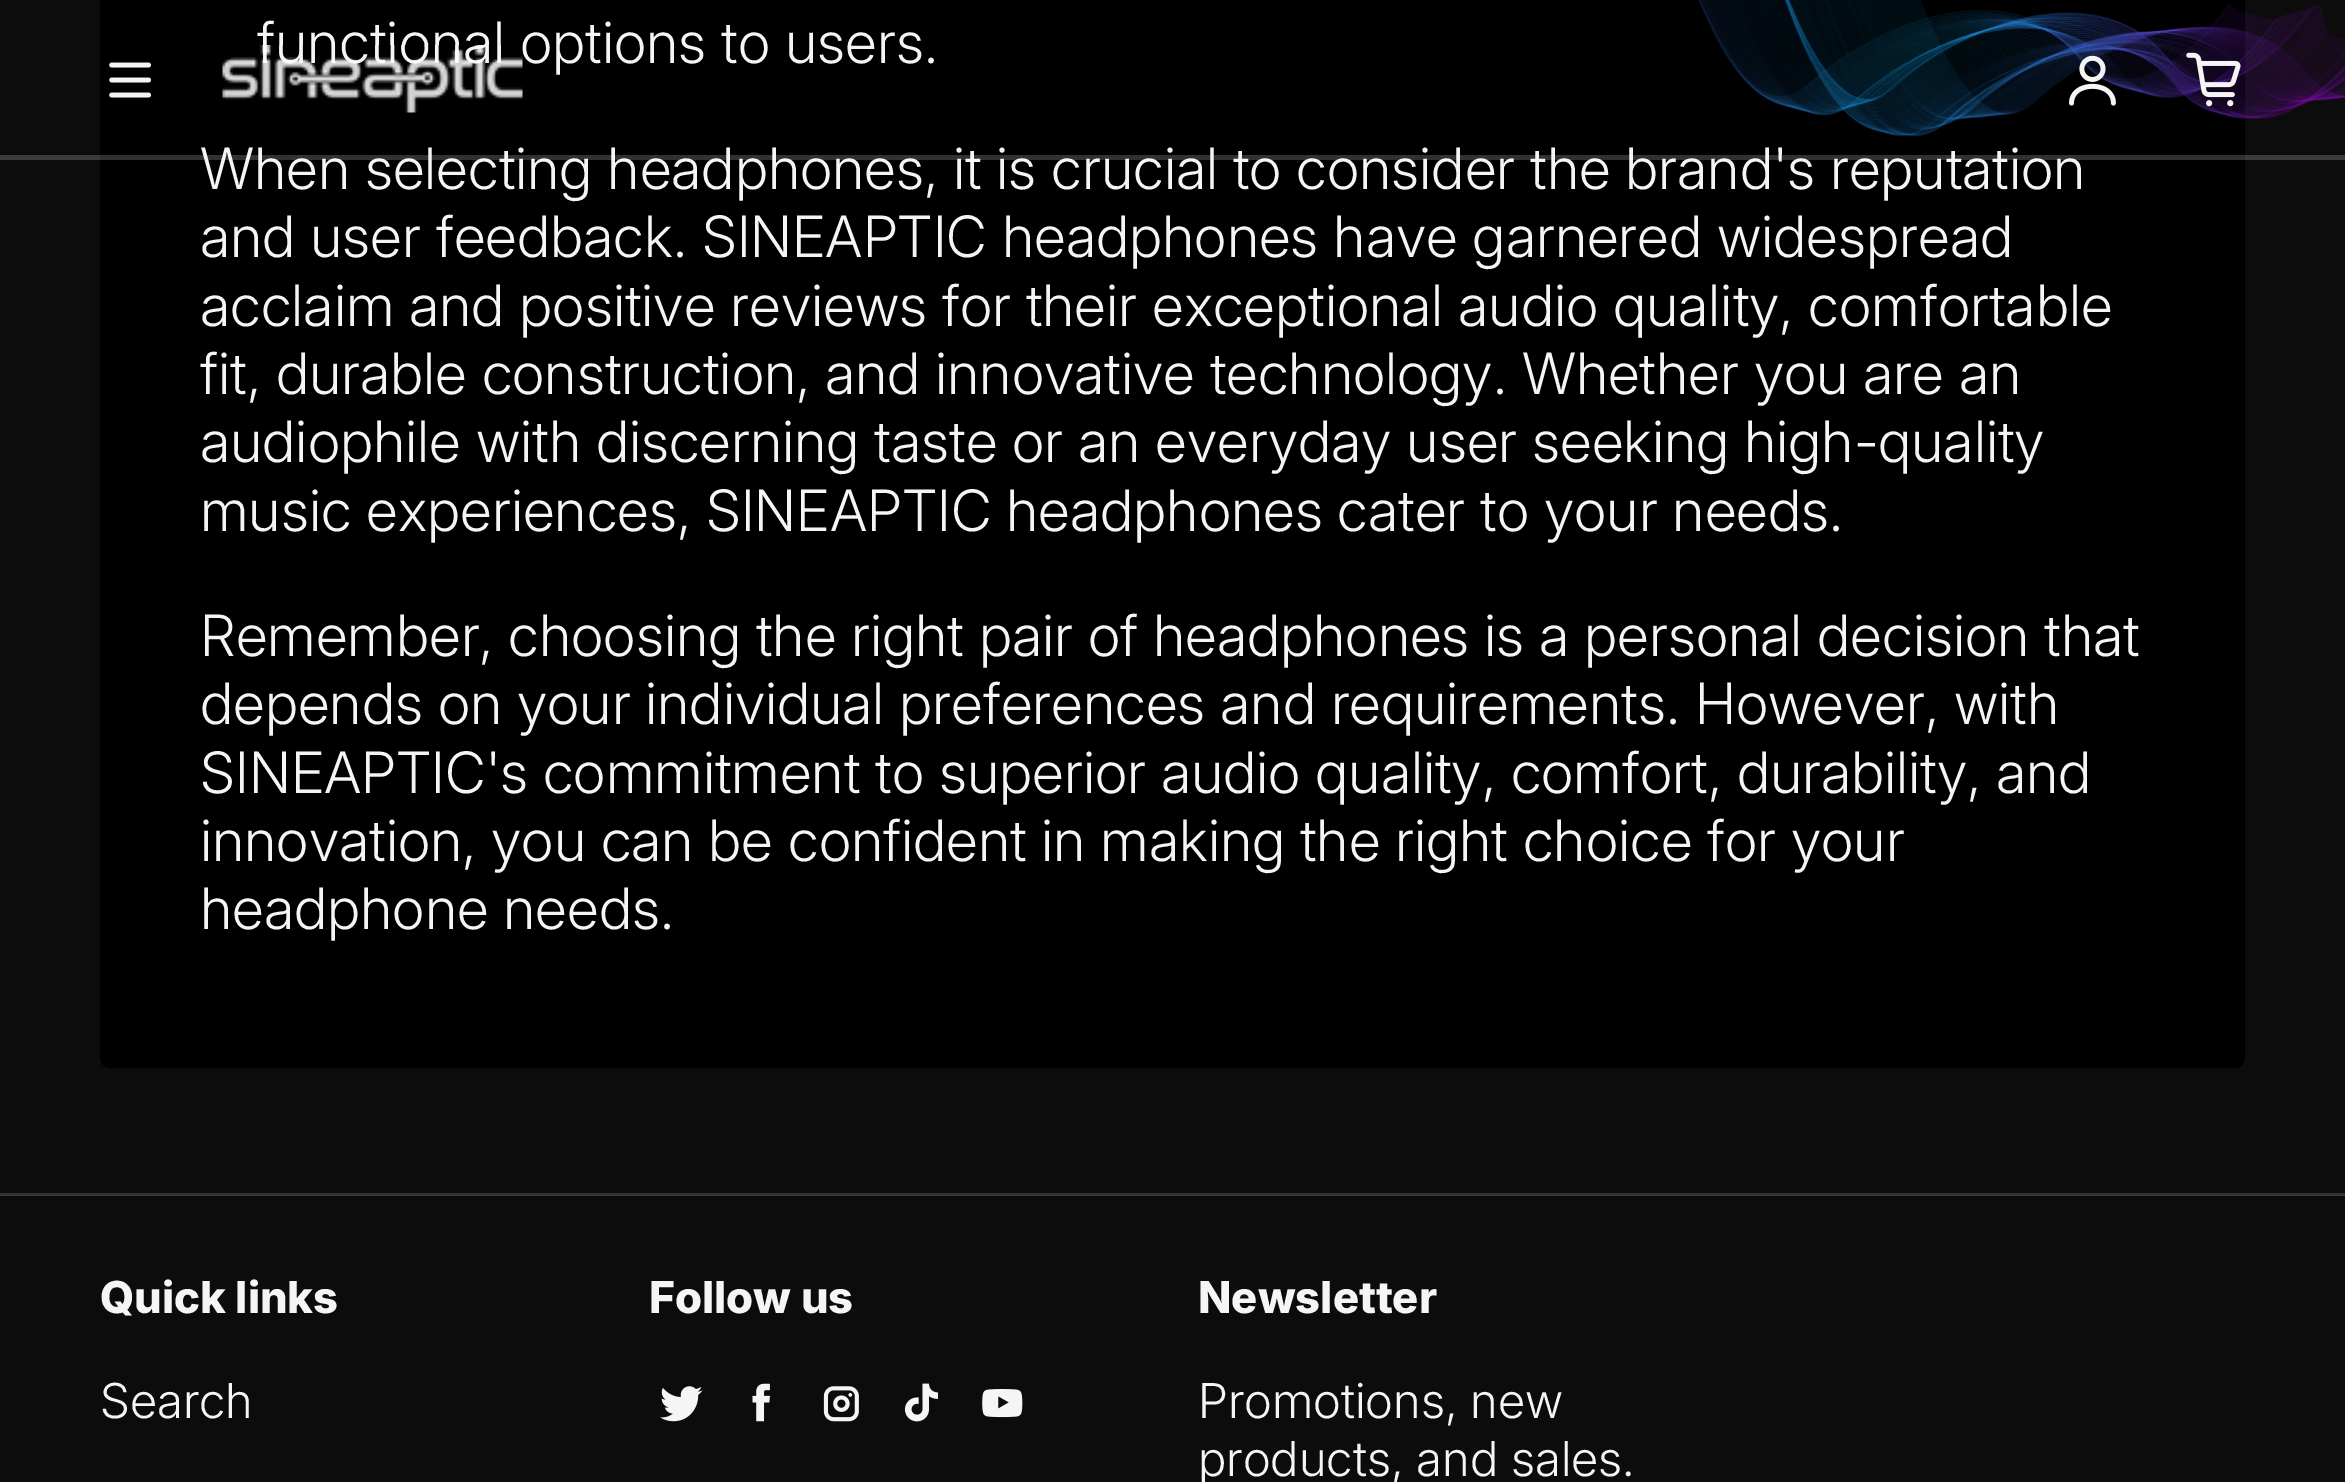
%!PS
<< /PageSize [2345 1482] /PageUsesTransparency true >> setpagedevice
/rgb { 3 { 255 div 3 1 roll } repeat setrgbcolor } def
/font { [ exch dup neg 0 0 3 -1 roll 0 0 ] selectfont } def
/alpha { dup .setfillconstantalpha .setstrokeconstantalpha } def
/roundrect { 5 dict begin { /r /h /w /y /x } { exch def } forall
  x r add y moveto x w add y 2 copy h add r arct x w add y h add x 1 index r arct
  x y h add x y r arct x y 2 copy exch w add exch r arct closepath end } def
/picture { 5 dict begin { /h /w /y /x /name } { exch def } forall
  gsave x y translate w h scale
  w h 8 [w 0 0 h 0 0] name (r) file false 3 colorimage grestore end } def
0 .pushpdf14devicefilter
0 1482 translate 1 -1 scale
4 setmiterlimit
12 12 12 rgb
0 0 2345 1482 rectfill
0 0 0 rgb
100 -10 2145 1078 10 roundrect fill
(img/1.rgb) 1698 0 647 137 picture
(img/2.rgb) 109 62 42 36 picture
(img/4.rgb) 2069 55 47 51 picture
(img/5.rgb) 2186 52 55 55 picture
49 49 49 rgb
0 1193 2345 2 rectfill
59 59 59 rgb
0 1195 2345 1 rectfill
(img/6.rgb) 660 1386 43 36 picture
(img/7.rgb) 752 1383 18 39 picture
(img/8.rgb) 823 1386 36 36 picture
(img/9.rgb) 904 1383 34 39 picture
(img/10.rgb) 982 1389 41 29 picture
/Inter-Light 57 font
245 245 245 rgb
257 63 moveto (functional options to users.) show
(img/3.rgb) 222 45 301 68 picture
200 189 moveto (When selecting headphones, it is crucial to consider the brand's reputation) show
0.2 alpha
0 155 2345 5 rectfill
1 alpha
[
  [(and user feedback. SINEAPTIC headphones have garnered widespread) 200 257]
  [(acclaim and positive reviews for their exceptional audio quality, comfortable) 200 326]
  [(fit, durable construction, and innovative technology. Whether you are an) 200 394]
  [(audiophile with discerning taste or an everyday user seeking high-quality) 200 462]
  [(music experiences, SINEAPTIC headphones cater to your needs.) 200 531]
  [(Remember, choosing the right pair of headphones is a personal decision that) 200 656]
  [(depends on your individual preferences and requirements. However, with) 200 724]
  [(SINEAPTIC's commitment to superior audio quality, comfort, durability, and) 200 793]
  [(innovation, you can be confident in making the right choice for your) 200 861]
  [(headphone needs.) 200 929]
] { aload pop moveto show } forall
/Inter-ExtraBold 44 font
100 1313 moveto (Quick links) show
/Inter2-Light 48 font
100 1418 moveto (Search) show
/Inter-ExtraBold 44 font
649 1313 moveto (Follow us) show
1198 1313 moveto (Newsletter) show
/Inter2-Light 48 font
1198 1418 moveto (Promotions, new) show
1198 1476 moveto (products, and sales.) show
.poppdf14devicefilter showpage
